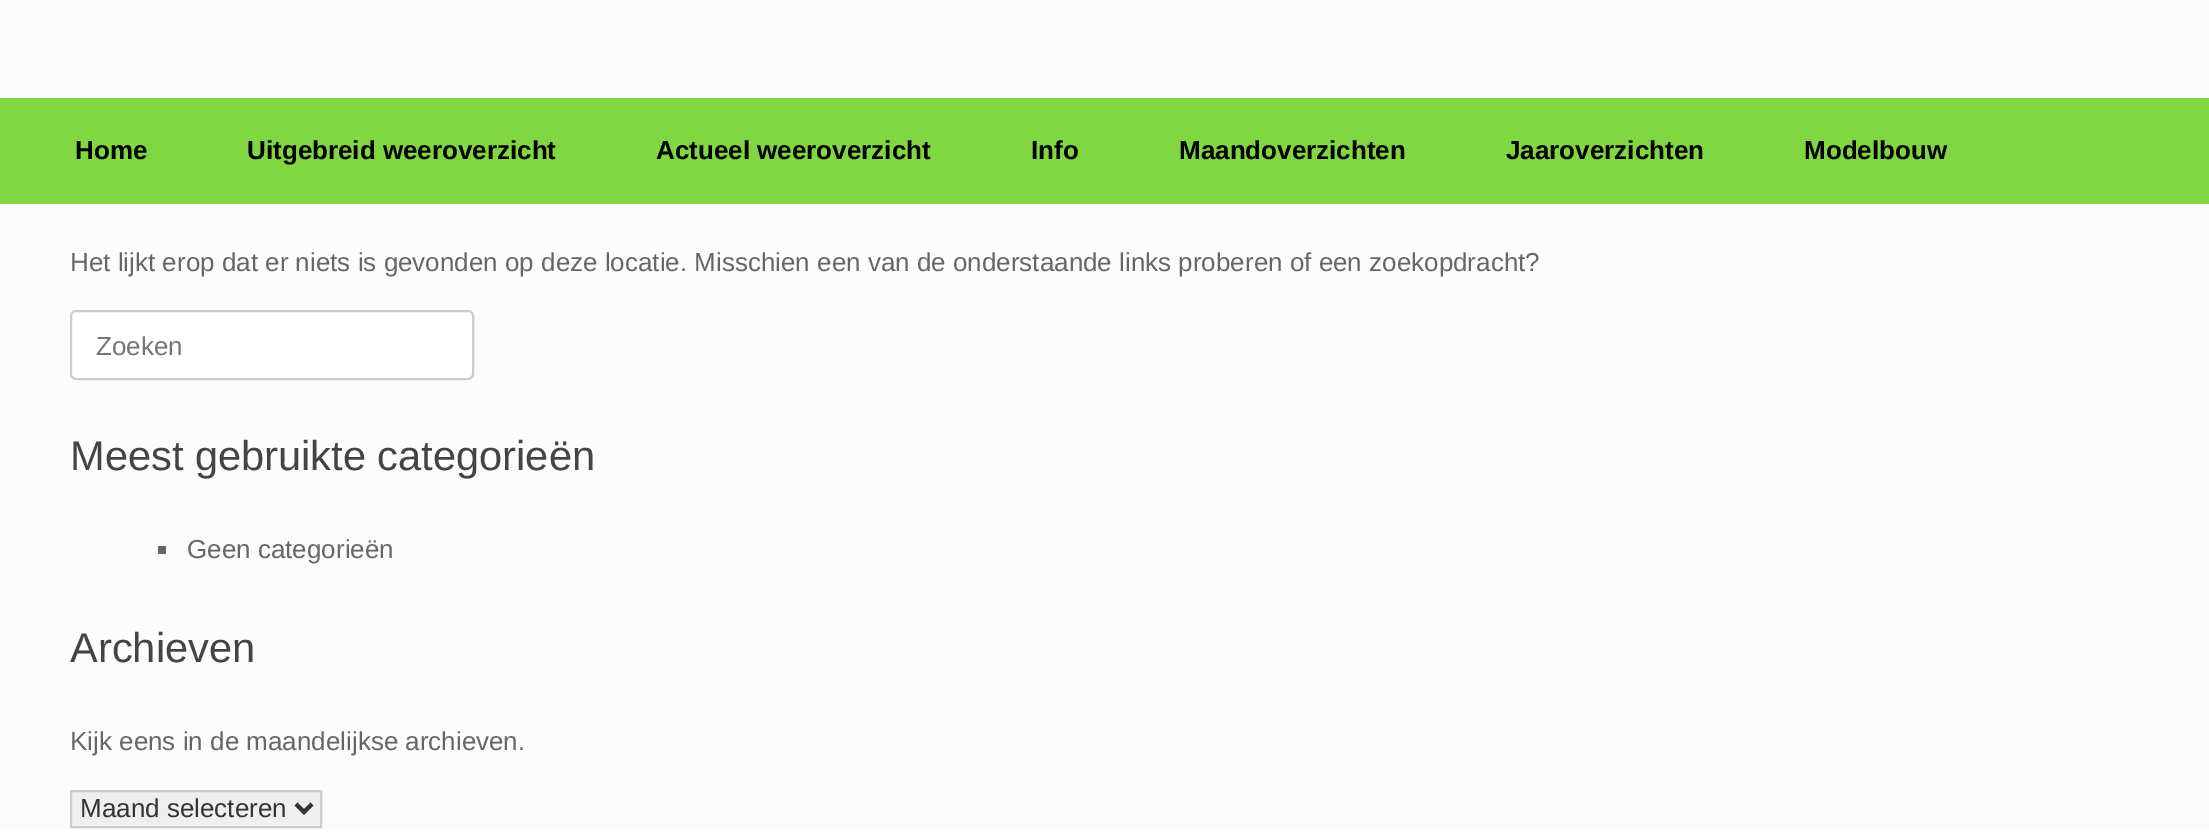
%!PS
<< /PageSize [2209 839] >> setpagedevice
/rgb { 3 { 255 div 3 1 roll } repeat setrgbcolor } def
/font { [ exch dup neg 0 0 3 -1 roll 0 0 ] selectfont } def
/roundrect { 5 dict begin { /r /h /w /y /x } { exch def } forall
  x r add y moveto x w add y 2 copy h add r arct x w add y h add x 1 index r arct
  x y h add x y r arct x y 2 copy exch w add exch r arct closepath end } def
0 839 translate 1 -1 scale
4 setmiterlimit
255 255 255 rgb
0 0 2209 839 rectfill
[
  [0 0 2209 98 252 252 252]
  [0 98 2209 106 129 215 66]
  [0 204 2209 626 252 252 252]
] { aload pop rgb rectfill } forall
255 255 255 rgb
71 311 402 68 5 roundrect gsave fill grestore
204 204 204 rgb
2 setlinewidth
stroke
102 102 102 rgb
158 546 8 8 rectfill
239 239 239 rgb
71 791 moveto 321 791 lineto 321 827 lineto 71 827 lineto closepath gsave fill grestore
204 204 204 rgb
stroke
51 51 51 rgb
4 setlinewidth
296 804 moveto 304 812 lineto 312 804 lineto stroke
/LiberationSans-Bold 26 font
0 0 0 rgb
[
  [(Home) 75 159]
  [(Uitgebreid weeroverzicht) 247 159]
  [(Actueel weeroverzicht) 656 159]
  [(Info) 1031 159]
  [(Maandoverzichten) 1179 159]
  [(Jaaroverzichten) 1506 159]
  [(Modelbouw) 1804 159]
] { aload pop moveto show } forall
/LiberationSans-Regular 26 font
102 102 102 rgb
70 271 moveto (Het lijkt erop dat er niets is gevonden op deze locatie. Misschien een van de onderstaande links proberen of een zoekopdracht?) show
117 117 117 rgb
96 355 moveto (Zoeken) show
/LiberationSans-Regular 41.6 font
68 68 68 rgb
70 470 moveto (Meest gebruikte categorieën) show
/LiberationSans-Regular 26 font
102 102 102 rgb
187 558 moveto (Geen categorieën) show
/LiberationSans-Regular 41.6 font
68 68 68 rgb
70 662 moveto (Archieven) show
/LiberationSans-Regular 26 font
102 102 102 rgb
70 750 moveto (Kijk eens in de maandelijkse archieven.) show
51 51 51 rgb
80 817 moveto (Maand selecteren) show
showpage
